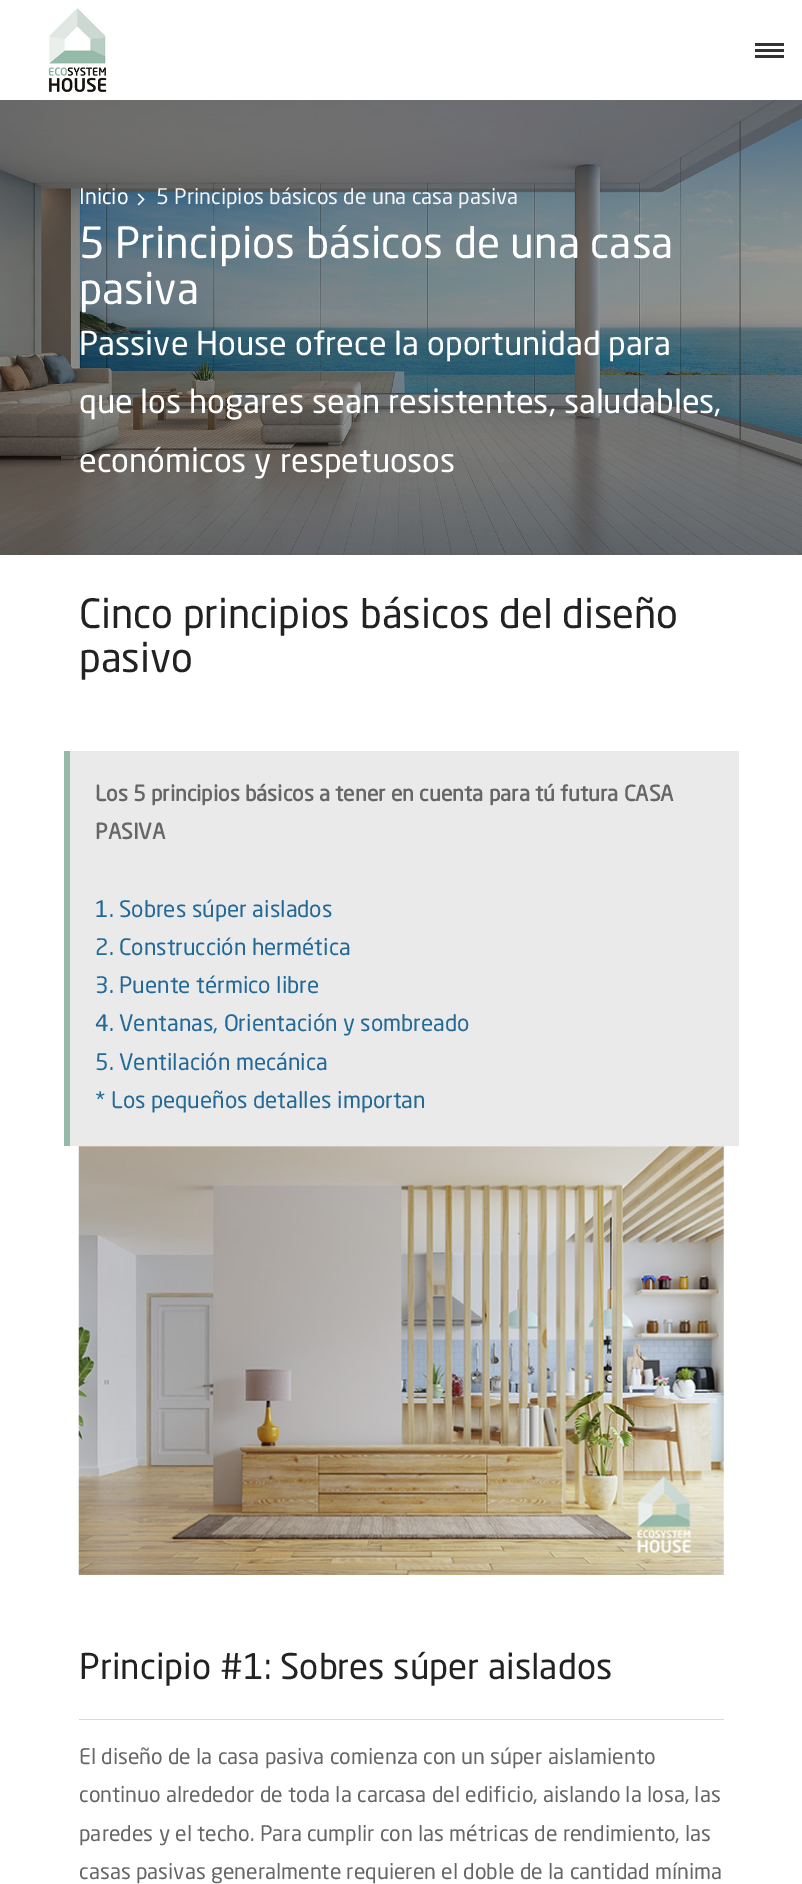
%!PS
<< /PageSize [802 1884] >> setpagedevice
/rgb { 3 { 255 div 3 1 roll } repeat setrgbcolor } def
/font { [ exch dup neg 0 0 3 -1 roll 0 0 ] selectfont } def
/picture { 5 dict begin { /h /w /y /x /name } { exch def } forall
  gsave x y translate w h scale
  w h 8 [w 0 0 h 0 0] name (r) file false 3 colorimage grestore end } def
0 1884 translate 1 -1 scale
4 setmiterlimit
255 255 255 rgb
0 0 802 1884 rectfill
(img/1.rgb) 48 8 59 84 picture
[
  [755 43 29 3 51 51 51]
  [755 49 29 3 51 51 51]
  [755 55 29 3 51 51 51]
] { aload pop rgb rectfill } forall
(img/2.rgb) 0 100 802 455 picture
(img/3.rgb) 137 193 8 13 picture
234 234 234 rgb
70 751 669 395 rectfill
149 186 169 rgb
64 751 6 395 rectfill
(img/4.rgb) 78 1146 646 429 picture
217 217 217 rgb
79 1719 645 1 rectfill
/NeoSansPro-Regular 21.25 font
255 255 255 rgb
79 204 moveto (Inicio) show
244 244 244 rgb
156 204 moveto (5 Principios básicos de una casa pasiva) show
/NeoSansPro-Regular 42.5 font
255 255 255 rgb
79 258 moveto (5 Principios básicos de una casa) show
79 304 moveto (pasiva) show
/NeoSansPro-Regular 32.5 font
[
  [(Passive House ofrece la oportunidad para) 79 355]
  [(que los hogares sean resistentes, saludables,) 79 413]
  [(económicos y respetuosos) 79 472]
] { aload pop moveto show } forall
/NeoSansPro-Regular 40 font
34 34 34 rgb
79 628 moveto (Cinco principios básicos del diseño) show
79 672 moveto (pasivo) show
/NeoSansPro-Bold 21.25 font
102 102 102 rgb
95 801 moveto (Los 5 principios básicos a tener en cuenta para tú futura CASA) show
95 839 moveto (PASIVA) show
/NeoSansPro-Regular 22.5 font
35 105 152 rgb
[
  [(1. Sobres súper aislados) 95 917]
  [(2. Construcción hermética) 95 955]
  [(3. Puente térmico libre) 95 993]
  [(4. Ventanas, Orientación y sombreado) 95 1031]
  [(5. Ventilación mecánica) 95 1070]
  [(* Los pequeños detalles importan) 95 1108]
] { aload pop moveto show } forall
/NeoSansPro-Regular 35 font
34 34 34 rgb
79 1679 moveto (Principio #1: Sobres súper aislados) show
/NeoSansPro-Regular 21.25 font
102 102 102 rgb
[
  [(El diseño de la casa pasiva comienza con un súper aislamiento) 79 1764]
  [(continuo alrededor de toda la carcasa del edificio, aislando la losa, las) 79 1802]
  [(paredes y el techo. Para cumplir con las métricas de rendimiento, las) 79 1841]
  [(casas pasivas generalmente requieren el doble de la cantidad mínima) 79 1879]
] { aload pop moveto show } forall
showpage
